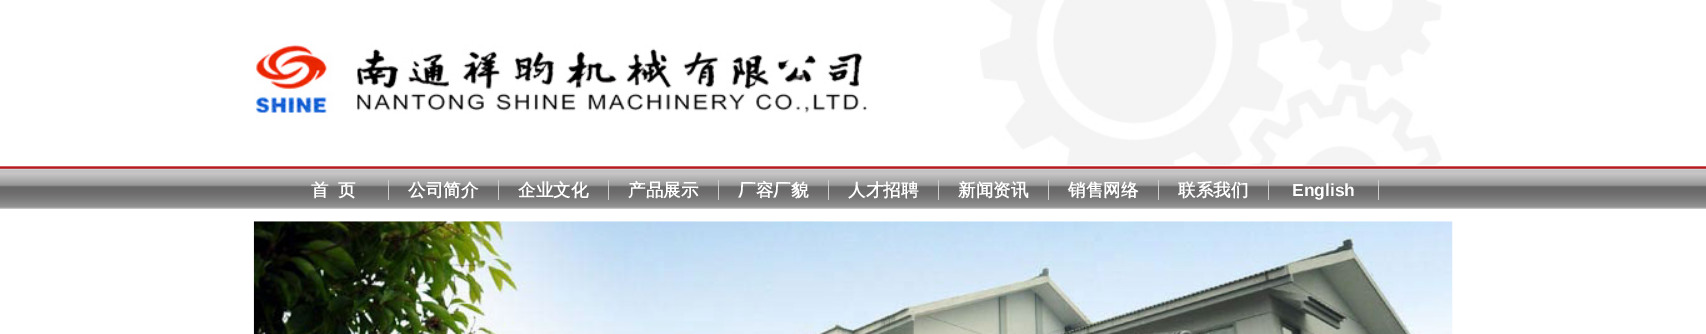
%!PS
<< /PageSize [1706 334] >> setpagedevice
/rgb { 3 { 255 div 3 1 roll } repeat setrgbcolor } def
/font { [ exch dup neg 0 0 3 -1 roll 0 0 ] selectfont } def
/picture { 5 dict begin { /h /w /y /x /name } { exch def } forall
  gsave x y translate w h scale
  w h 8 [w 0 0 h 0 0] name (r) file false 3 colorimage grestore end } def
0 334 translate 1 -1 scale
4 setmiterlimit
255 255 255 rgb
0 0 1706 334 rectfill
(img/1.rgb) 980 0 462 165 picture
(img/2.rgb) 255 44 612 69 picture
(img/3.rgb) 0 166 1706 43 picture
[
  [388 180 1 20 204 204 204]
  [498 180 1 20 204 204 204]
  [608 180 1 20 204 204 204]
  [718 180 1 20 204 204 204]
  [828 180 1 20 204 204 204]
  [938 180 1 20 204 204 204]
  [1048 180 1 20 204 204 204]
  [1158 180 1 20 204 204 204]
  [1268 180 1 20 204 204 204]
  [1378 180 1 20 204 204 204]
] { aload pop rgb rectfill } forall
(img/4.rgb) 253 221 1200 113 picture
/WenQuanYiZenHei-Bold 17.5 font
255 255 255 rgb
[
  [(首) 311 196]
  [(页) 338 196]
  [(公司简介) 408 196]
  [(企业文化) 518 196]
  [(产品展示) 628 196]
  [(厂容厂貌) 738 196]
  [(人才招聘) 848 196]
  [(新闻资讯) 958 196]
  [(销售网络) 1068 196]
  [(联系我们) 1178 196]
] { aload pop moveto show } forall
/LiberationSans-Bold 17.5 font
1292 196 moveto (English) show
showpage
